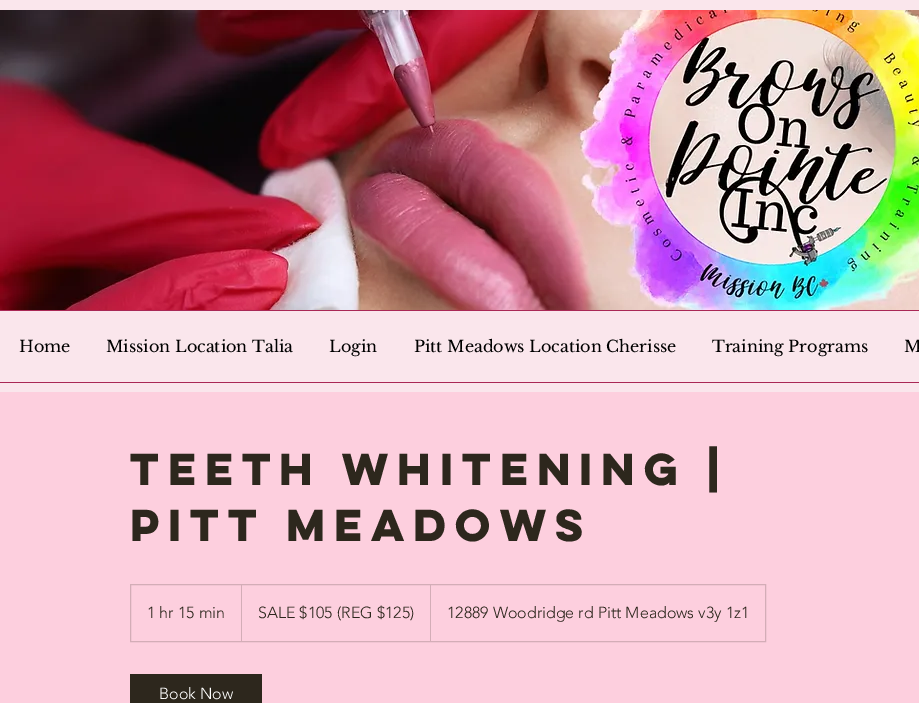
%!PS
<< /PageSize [919 703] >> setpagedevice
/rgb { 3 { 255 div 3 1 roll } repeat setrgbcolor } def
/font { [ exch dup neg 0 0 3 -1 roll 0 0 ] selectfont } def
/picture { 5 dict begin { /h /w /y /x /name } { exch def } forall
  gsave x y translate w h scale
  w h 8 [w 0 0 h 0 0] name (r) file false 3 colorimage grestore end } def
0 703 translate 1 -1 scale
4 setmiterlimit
250 230 236 rgb
0 0 919 703 rectfill
(img/1.rgb) 0 10 919 300 picture
[
  [0 310 919 1 169 40 86]
  [0 382 919 1 169 40 86]
  [0 392 919 311 253 207 222]
] { aload pop rgb rectfill } forall
211 173 183 rgb
130.5 584.5 635 57 rectstroke
241 641 moveto 241 584 lineto 242 585 lineto 242 641 lineto closepath fill
430 641 moveto 430 584 lineto 431 585 lineto 431 641 lineto closepath fill
45 39 29 rgb
130 674 132 29 rectfill
/LibreBaskerville-Regular 16 font
0 0 0 rgb
[
  [(Home) 19 352]
  [(Mission Location Talia) 106 352]
  [(Login) 329 352]
  [(Pitt Meadows Location Cherisse) 414 352]
  [(Training Programs) 712 352]
  [(M) 904 352]
] { aload pop moveto show } forall
/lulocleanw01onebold-Bold 40 font
45 39 29 rgb
130 485 moveto (Teeth Whitening |) show
130 541 moveto (Pitt Meadows) show
/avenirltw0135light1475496-Light 16 font
[
  [(1 hr 15 min) 147 618]
  [(SALE $105 \(REG $125\)) 258 618]
  [(12889 Woodridge rd Pitt Meadows v3y 1z1) 447 618]
] { aload pop moveto show } forall
255 255 255 rgb
159 699 moveto (Book Now) show
showpage
